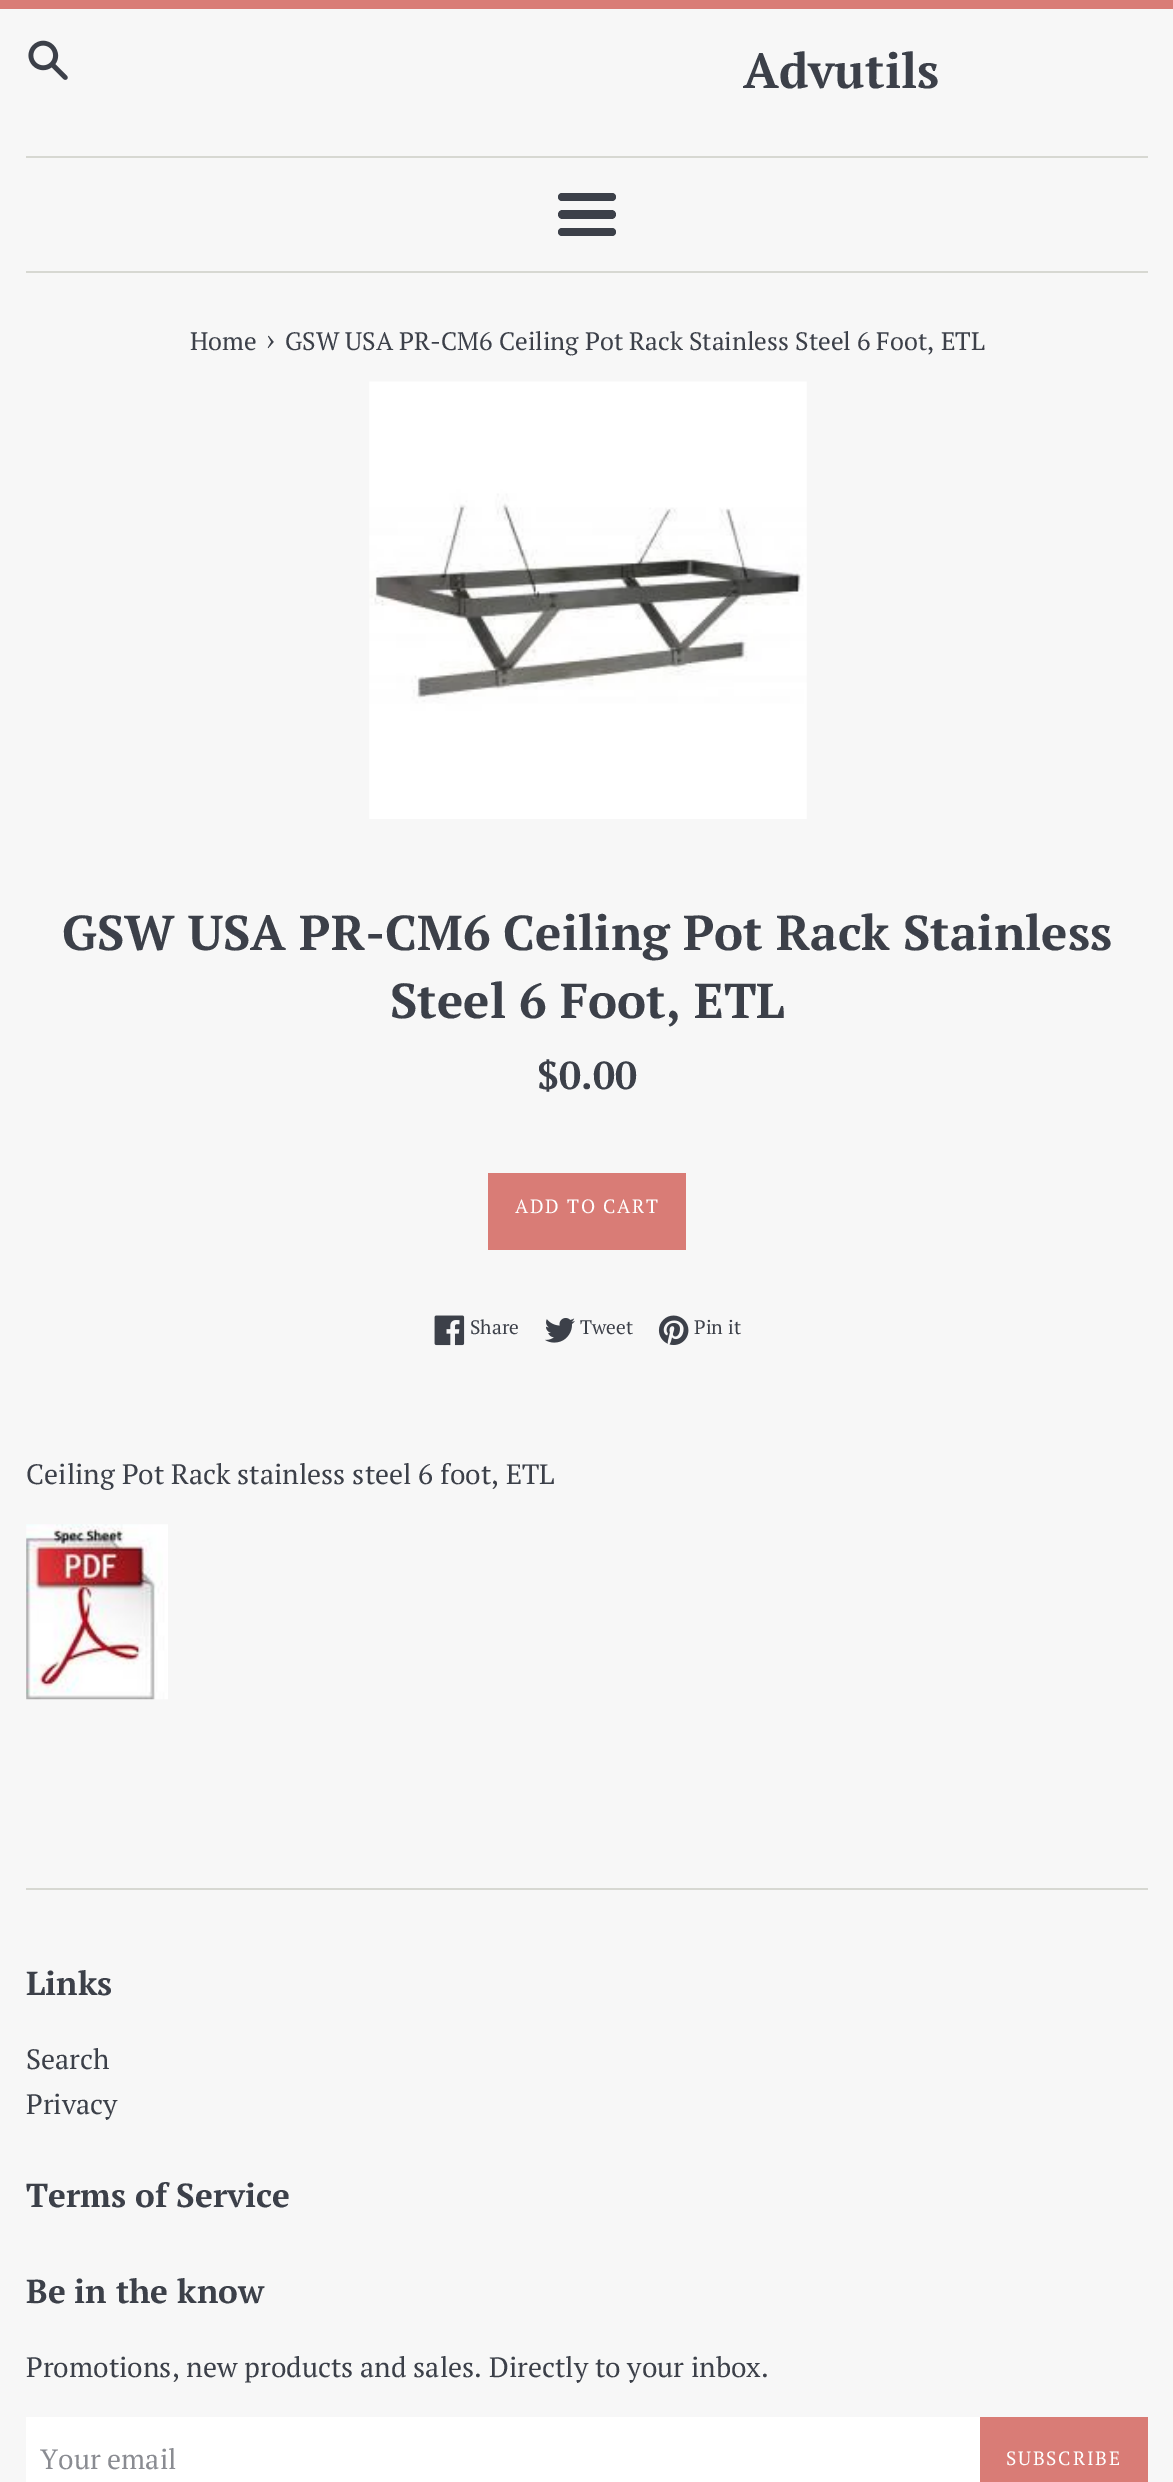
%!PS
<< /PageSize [1173 2482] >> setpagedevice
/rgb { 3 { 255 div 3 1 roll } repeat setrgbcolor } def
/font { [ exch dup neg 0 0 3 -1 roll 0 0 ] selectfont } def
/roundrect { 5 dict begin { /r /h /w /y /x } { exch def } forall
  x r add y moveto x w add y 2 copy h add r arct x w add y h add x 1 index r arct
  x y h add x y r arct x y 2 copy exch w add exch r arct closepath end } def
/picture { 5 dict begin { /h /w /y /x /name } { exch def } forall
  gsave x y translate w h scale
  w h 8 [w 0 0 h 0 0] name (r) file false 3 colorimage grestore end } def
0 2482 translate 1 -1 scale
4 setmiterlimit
247 247 247 rgb
0 0 1173 2482 rectfill
217 124 118 rgb
0 0 1173 9 rectfill
(img/1.rgb) 28 40 40 40 picture
215 216 210 rgb
26 156 1122 2 rectfill
60 64 73 rgb
558 193 58 8 4 roundrect fill
558 210 58 9 4.5 roundrect fill
558 228 58 8 4 roundrect fill
215 216 210 rgb
26 271 1122 2 rectfill
(img/2.rgb) 369 381 438 438 picture
217 124 118 rgb
488 1173 198 77 rectfill
(img/3.rgb) 434 1315 31 31 picture
(img/4.rgb) 545 1318 30 25 picture
(img/5.rgb) 658 1315 31 30 picture
(img/6.rgb) 26 1524 142 176 picture
[
  [26 1888 1122 2 215 216 210]
  [26 2417 954 65 255 255 255]
  [980 2417 168 65 217 124 118]
] { aload pop rgb rectfill } forall
/PTSerif-Bold 49 font
60 64 73 rgb
743 88 moveto (Advutils) show
/PTSerif-Regular 25.2 font
190 350 moveto (Home) show
/PTSerif-Regular 31 font
266 350 moveto (›) show
/PTSerif-Regular 25.2 font
285 350 moveto (GSW USA PR-CM6 Ceiling Pot Rack Stainless Steel 6 Foot, ETL) show
/PTSerif-Bold 49 font
62 950 moveto (GSW USA PR-CM6 Ceiling Pot Rack Stainless) show
390 1018 moveto (Steel 6 Foot, ETL) show
/PTSerif-Bold 39 font
537 1089 moveto ($0.00) show
/PTSerif-Regular 19.25 font
255 255 255 rgb
515 1213 moveto 1.75 0 (ADD TO CART) ashow
/PTSerif-Regular 19.5 font
60 64 73 rgb
[
  [(Share) 470 1334]
  [(Tweet) 580 1334]
  [(Pin it) 694 1334]
] { aload pop moveto show } forall
/PTSerif-Regular 28 font
26 1484 moveto (Ceiling Pot Rack stainless steel 6 foot, ETL) show
/PTSerif-Bold 33.25 font
26 1995 moveto (Links) show
/PTSerif-Regular 28 font
26 2069 moveto (Search) show
26 2114 moveto (Privacy) show
/PTSerif-Bold 33.25 font
26 2207 moveto (Terms of Service) show
26 2303 moveto (Be in the know) show
/PTSerif-Regular 28 font
26 2377 moveto (Promotions, new products and sales. Directly to your inbox.) show
138 140 146 rgb
40 2469 moveto (Your email) show
/PTSerif-Regular 19.25 font
255 255 255 rgb
1006 2465 moveto 1.75 0 (SUBSCRIBE) ashow
showpage
